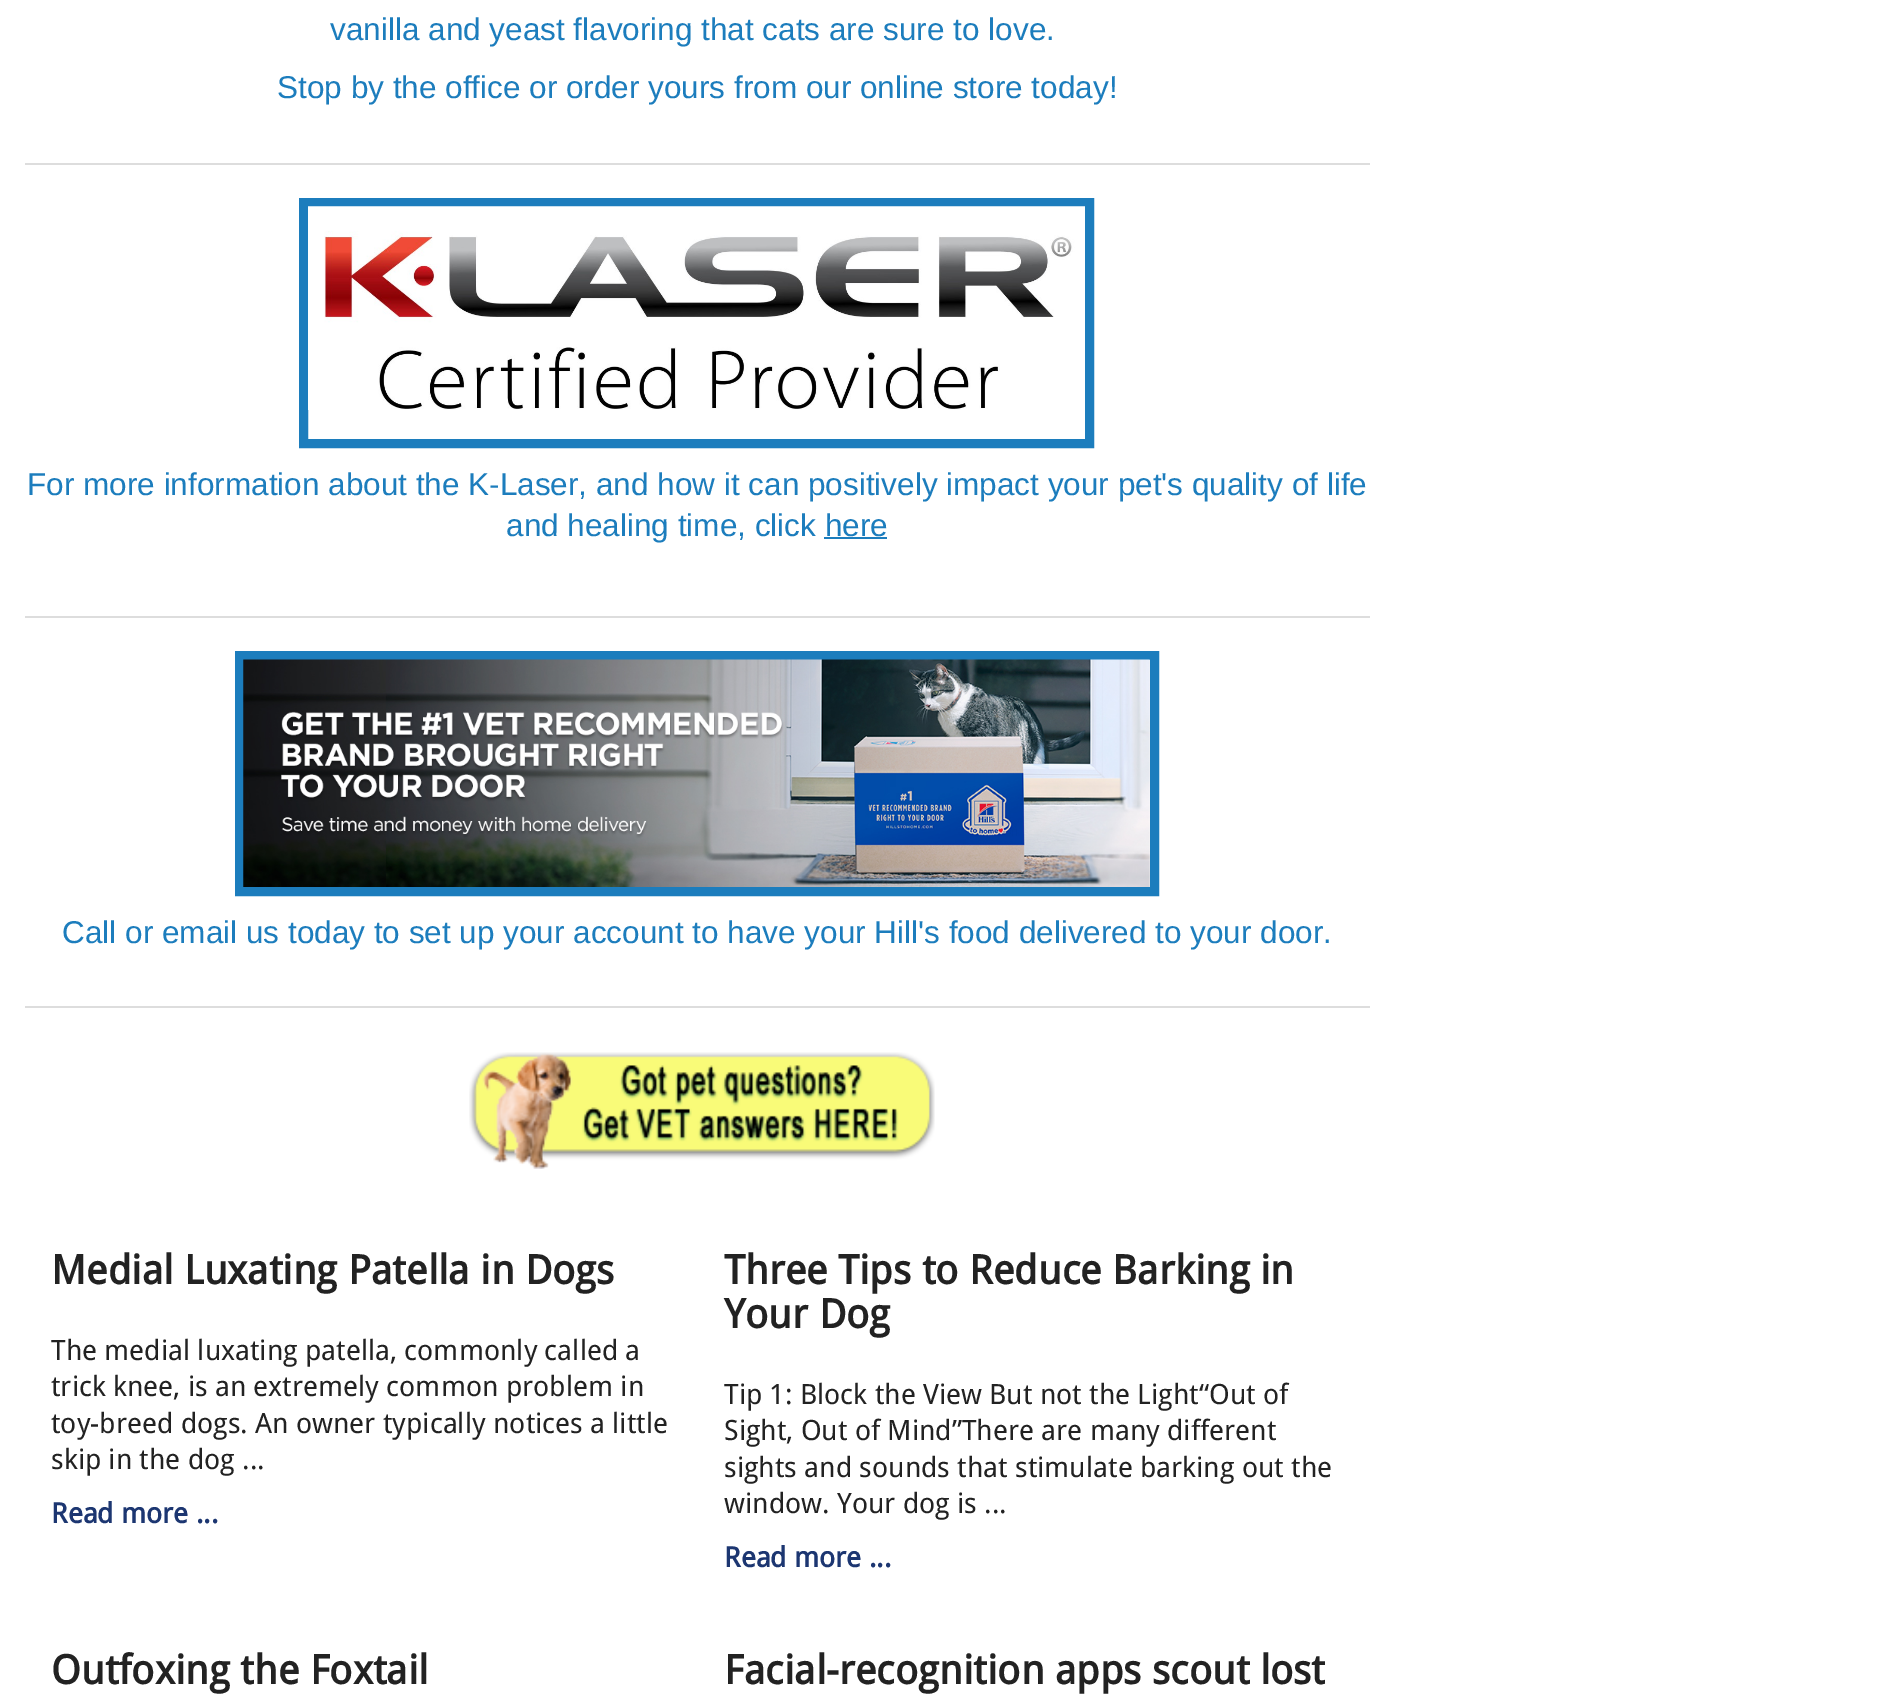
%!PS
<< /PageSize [1891 1700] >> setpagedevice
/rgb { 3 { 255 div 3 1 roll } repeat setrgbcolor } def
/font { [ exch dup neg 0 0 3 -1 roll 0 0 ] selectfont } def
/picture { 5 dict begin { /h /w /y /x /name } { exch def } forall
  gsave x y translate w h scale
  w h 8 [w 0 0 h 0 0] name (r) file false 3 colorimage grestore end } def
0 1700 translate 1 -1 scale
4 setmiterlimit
255 255 255 rgb
0 0 1891 1700 rectfill
221 221 221 rgb
25 163 1345 2 rectfill
28 125 189 rgb
9 setlinewidth
303.5 202.5 786 241 rectstroke
(img/1.rgb) 308 206 777 204 picture
824 537 63 2 rectfill
221 221 221 rgb
25 616 1345 2 rectfill
28 125 189 rgb
239.5 655.5 915 236 rectstroke
(img/2.rgb) 243 659 907 228 picture
221 221 221 rgb
25 1006 1345 2 rectfill
(img/3.rgb) 469 1052 466 117 picture
/LiberationSans-Regular 31.5 font
28 125 189 rgb
[
  [(vanilla and yeast flavoring that cats are sure to love.) 330 40]
  [(Stop by the office or order yours from our online store today!) 277 98]
  [(For more information about the K-Laser, and how it can positively impact your pet's quality of life) 27 495]
  [(and healing time, click here) 506 536]
  [(Call or email us today to set up your account to have your Hill's food delivered to your door.) 62 943]
] { aload pop moveto show } forall
/DroidSans-Bold 40.25 font
34 34 34 rgb
51 1284 moveto (Medial Luxating Patella in Dogs) show
/DroidSans-Regular 28 font
[
  [(The medial luxating patella, commonly called a) 51 1360]
  [(trick knee, is an extremely common problem in) 51 1396]
  [(toy-breed dogs. An owner typically notices a little) 51 1433]
  [(skip in the dog ...) 51 1469]
] { aload pop moveto show } forall
/DroidSans-Bold 28 font
28 54 113 rgb
51 1523 moveto (Read more ...) show
/DroidSans-Bold 40.25 font
34 34 34 rgb
724 1284 moveto (Three Tips to Reduce Barking in) show
724 1328 moveto (Your Dog) show
/DroidSans-Regular 28 font
[
  [(Tip 1: Block the View But not the Light“Out of) 724 1404]
  [(Sight, Out of Mind”There are many different) 724 1440]
  [(sights and sounds that stimulate barking out the) 724 1477]
  [(window. Your dog is ...) 724 1513]
] { aload pop moveto show } forall
/DroidSans-Bold 28 font
28 54 113 rgb
724 1567 moveto (Read more ...) show
/DroidSans-Bold 40.25 font
34 34 34 rgb
51 1684 moveto (Outfoxing the Foxtail) show
724 1684 moveto (Facial-recognition apps scout lost) show
showpage
